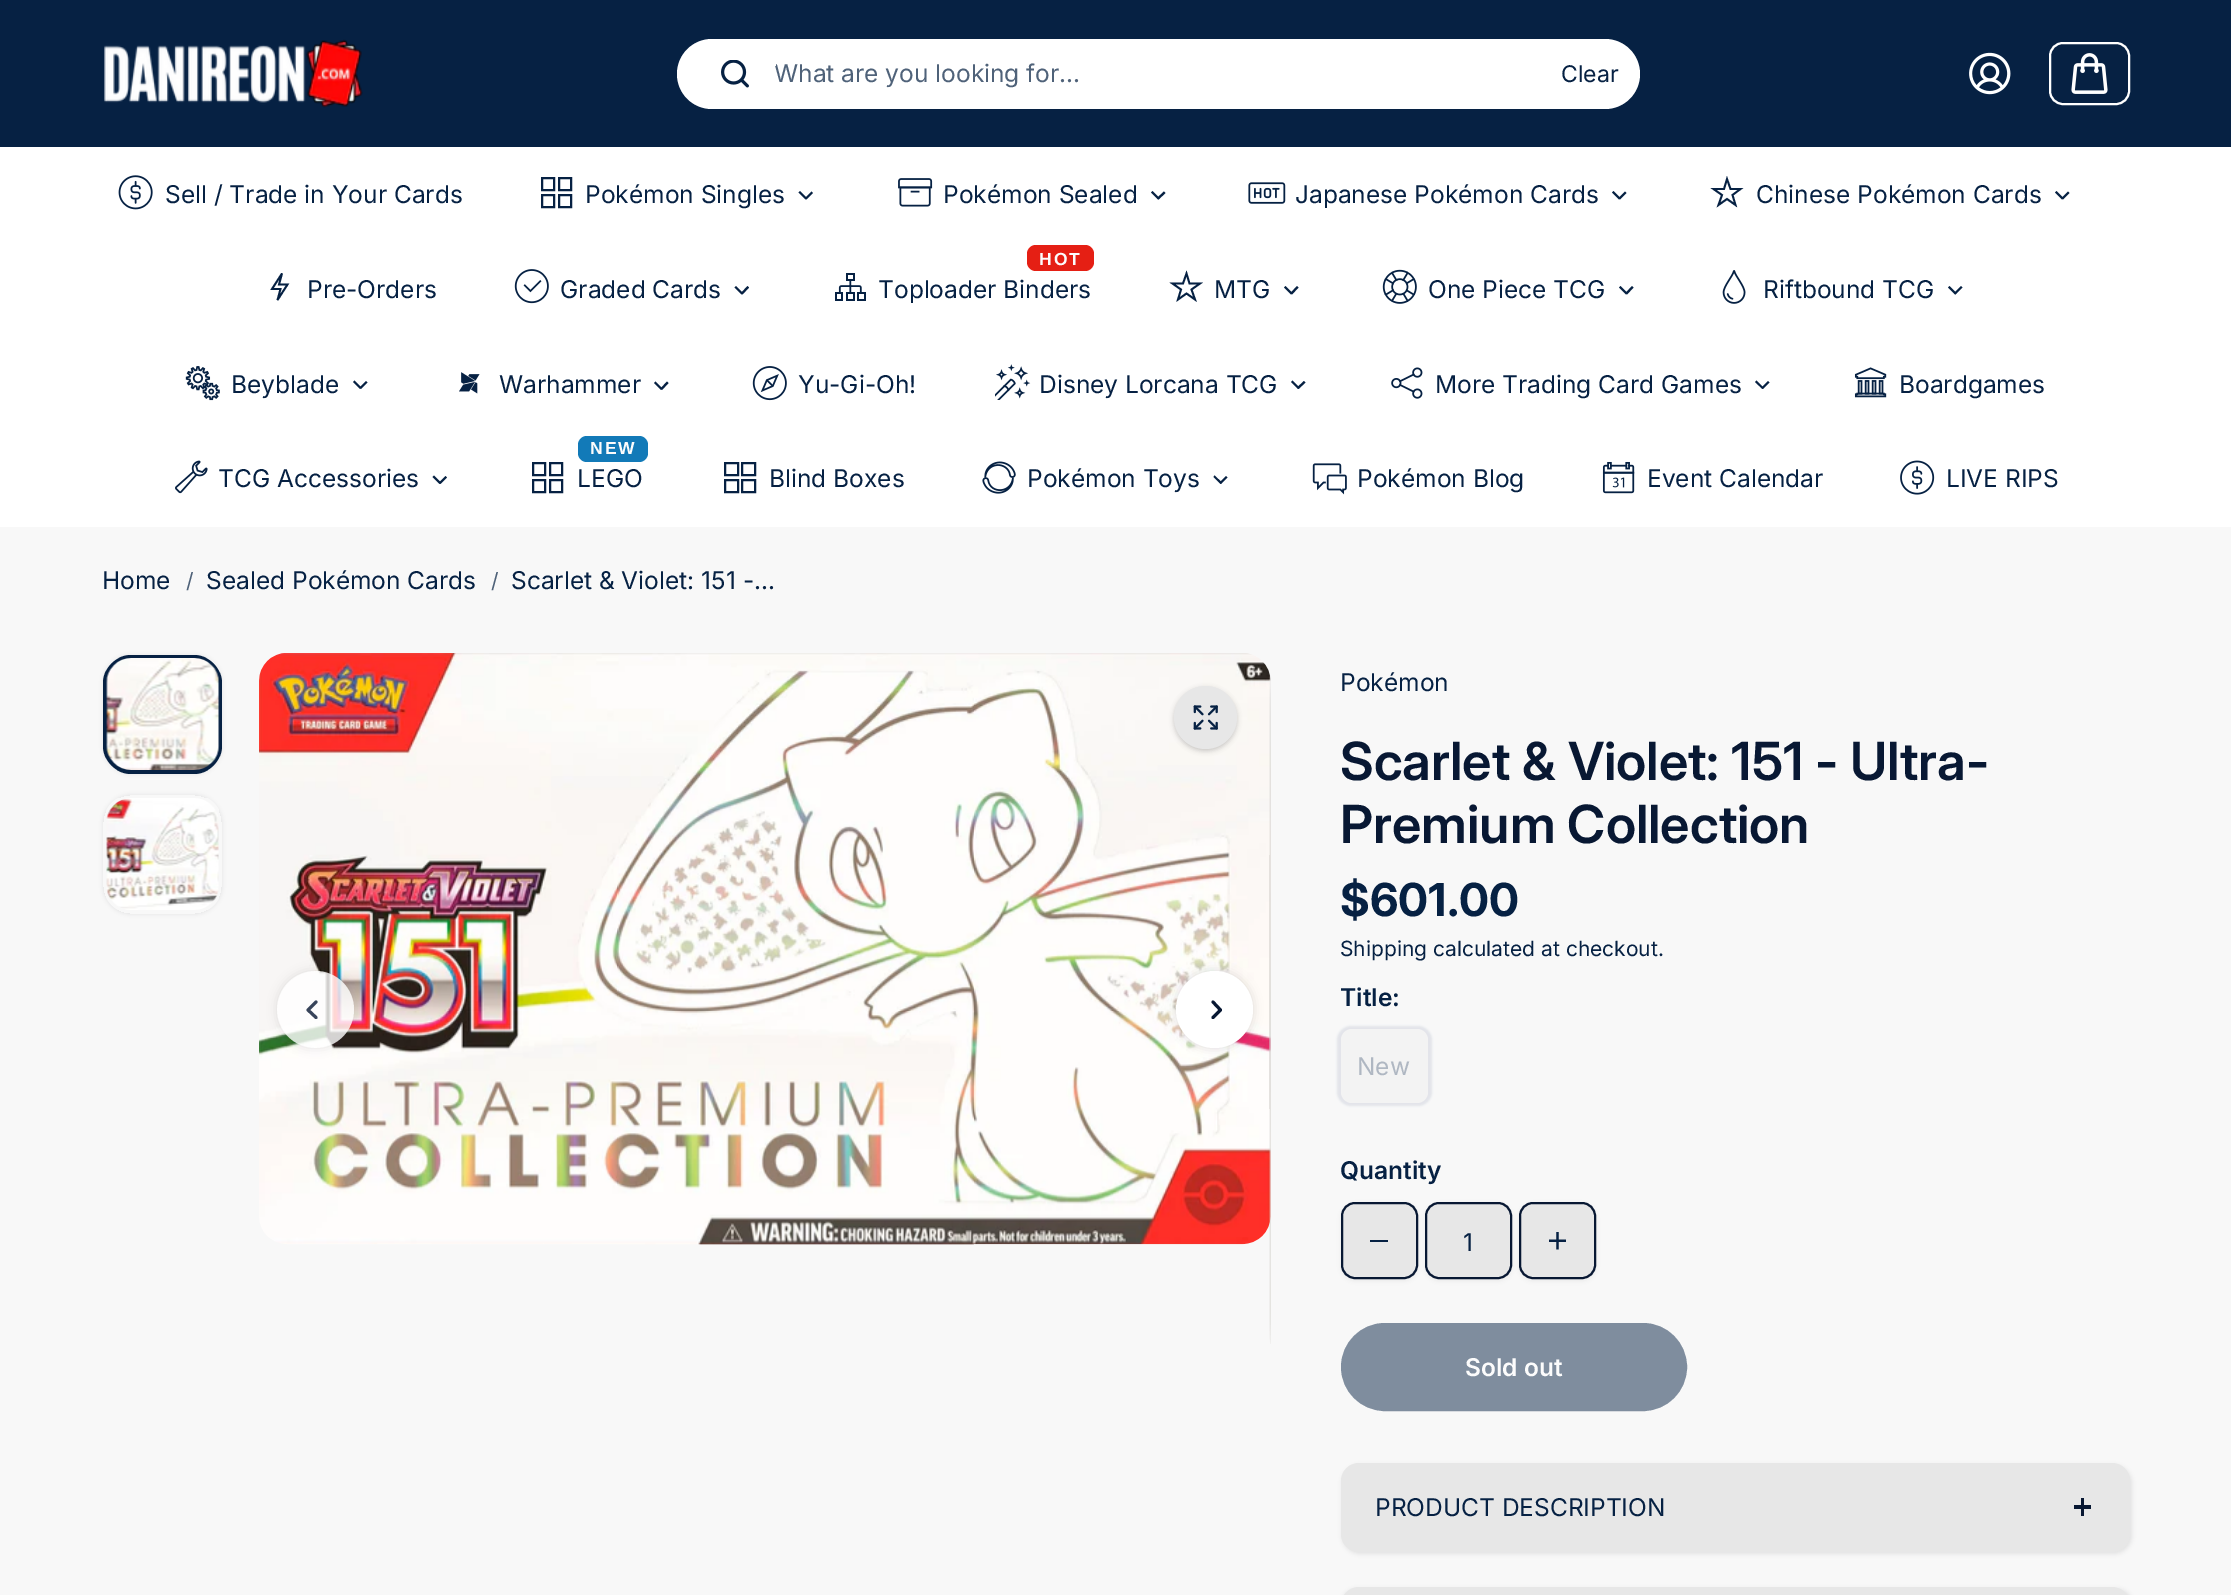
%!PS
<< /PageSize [2231 1595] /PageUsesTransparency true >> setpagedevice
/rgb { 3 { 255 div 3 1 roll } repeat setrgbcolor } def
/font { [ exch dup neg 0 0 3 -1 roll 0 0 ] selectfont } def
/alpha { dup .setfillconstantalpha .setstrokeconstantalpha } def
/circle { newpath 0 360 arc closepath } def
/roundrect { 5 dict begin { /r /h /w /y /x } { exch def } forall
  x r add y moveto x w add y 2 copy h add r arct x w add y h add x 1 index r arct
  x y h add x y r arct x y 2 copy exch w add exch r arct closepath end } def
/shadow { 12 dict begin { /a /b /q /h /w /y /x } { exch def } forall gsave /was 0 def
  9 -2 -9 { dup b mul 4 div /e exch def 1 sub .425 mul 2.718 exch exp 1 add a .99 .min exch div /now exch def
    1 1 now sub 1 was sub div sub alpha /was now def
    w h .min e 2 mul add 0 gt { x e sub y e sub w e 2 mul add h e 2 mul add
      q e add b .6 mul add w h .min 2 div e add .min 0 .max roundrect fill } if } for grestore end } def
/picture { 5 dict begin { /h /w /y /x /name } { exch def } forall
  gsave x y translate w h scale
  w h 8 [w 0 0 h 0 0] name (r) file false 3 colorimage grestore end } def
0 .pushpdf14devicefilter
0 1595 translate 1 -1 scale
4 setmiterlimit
248 248 248 rgb
0 0 2231 1595 rectfill
6 33 67 rgb
0 0 2231 147 rectfill
(img/1.rgb) 104 39 259 69 picture
255 255 255 rgb
677 39 963 70 35 roundrect fill
(img/2.rgb) 721 60 28 28 picture
(img/3.rgb) 1969 52 42 43 picture
2 setlinewidth
2050 43 79 61 13 roundrect stroke
(img/4.rgb) 2071 53 37 41 picture
0 147 2231 380 rectfill
(img/5.rgb) 118 175 35 35 picture
6 33 67 rgb
542 178 12 12 rectstroke
559 178 12 12 rectstroke
542 195 12 12 rectstroke
559 195 12 12 rectstroke
811.5 191.5 moveto 813 193 lineto 806.5 199.5 lineto 805 198 lineto closepath fill
800 191 moveto 807 198 lineto 805.5 199.5 lineto 798.5 192.5 lineto closepath fill
(img/6.rgb) 898 178 35 29 picture
1164 191.5 moveto 1165.5 193 lineto 1158.5 199.5 lineto 1157 198 lineto closepath fill
1152.5 191 moveto 1159.5 198 lineto 1158 199.5 lineto 1151 192.5 lineto closepath fill
(img/7.rgb) 1248 182 38 22 picture
1625 191.5 moveto 1626.5 193 lineto 1620 199.5 lineto 1618.5 198 lineto closepath fill
1613.5 191 moveto 1620.5 198 lineto 1619 199.5 lineto 1612 192.5 lineto closepath fill
1.8 setlinewidth
2 setlinecap
1727 179 moveto 1730.5 189 lineto 1740.5 189 lineto 1732.5 195 lineto 1735.5 205 lineto 1727 199 lineto 1718.5 205 lineto 1722 195 lineto 1713.5 189 lineto 1724 189 lineto closepath stroke
2068 191.5 moveto 2069.5 193 lineto 2063 199.5 lineto 2061.5 198 lineto closepath fill
2056.5 191 moveto 2063.5 198 lineto 2062 199.5 lineto 2055 192.5 lineto closepath fill
282 273.5 moveto 279 284.5 lineto 287.5 284.5 lineto 277.5 300 lineto 280.5 289 lineto 272 289 lineto closepath stroke
(img/8.rgb) 514 269 35 35 picture
747.5 286 moveto 749 287.5 lineto 742.5 294.5 lineto 741 293 lineto closepath fill
736 286 moveto 743 293 lineto 741.5 294.5 lineto 734.5 287.5 lineto closepath fill
229 31 20 rgb
1027 245 67 26 9 roundrect fill
(img/9.rgb) 835 273 31 28 picture
6 33 67 rgb
1186.5 273.5 moveto 1189.5 283.5 lineto 1200 283.5 lineto 1191.5 289.5 lineto 1195 299.5 lineto 1186.5 293.5 lineto 1178 299.5 lineto 1181 289.5 lineto 1172.5 283.5 lineto 1183 283.5 lineto closepath stroke
1297 286 moveto 1298.5 287.5 lineto 1292 294.5 lineto 1290.5 293 lineto closepath fill
1285.5 286 moveto 1292.5 293 lineto 1291 294.5 lineto 1284 287.5 lineto closepath fill
(img/10.rgb) 1382 269 35 35 picture
1632 286 moveto 1633.5 287.5 lineto 1627 294.5 lineto 1625.5 293 lineto closepath fill
1620.5 286 moveto 1627.5 293 lineto 1626 294.5 lineto 1619 287.5 lineto closepath fill
(img/11.rgb) 1722 270 24 34 picture
1961 286 moveto 1962.5 287.5 lineto 1955.5 294.5 lineto 1954 293 lineto closepath fill
1949.5 286 moveto 1956.5 293 lineto 1955 294.5 lineto 1948 287.5 lineto closepath fill
(img/12.rgb) 185 366 35 35 picture
366 381 moveto 367.5 382.5 lineto 361 389 lineto 359.5 387.5 lineto closepath fill
354.5 380.5 moveto 361.5 387.5 lineto 360 389 lineto 353 382 lineto closepath fill
(img/13.rgb) 459 372 21 22 picture
667 381.5 moveto 668.5 383 lineto 662 390 lineto 660.5 388.5 lineto closepath fill
655.5 381.5 moveto 662.5 388.5 lineto 661 390 lineto 654 383 lineto closepath fill
(img/14.rgb) 752 366 35 35 picture
(img/15.rgb) 995 364 36 36 picture
1304 381 moveto 1305.5 382.5 lineto 1298.5 389 lineto 1297 387.5 lineto closepath fill
1292.5 380.5 moveto 1299.5 387.5 lineto 1298 389 lineto 1291 382 lineto closepath fill
(img/16.rgb) 1391 367 32 32 picture
1768 381 moveto 1769.5 382.5 lineto 1763 389 lineto 1761.5 387.5 lineto closepath fill
1756.5 380.5 moveto 1763.5 387.5 lineto 1762.5 389 lineto 1755 382 lineto closepath fill
(img/17.rgb) 1854 367 33 31 picture
(img/18.rgb) 175 460 33 34 picture
445.5 476 moveto 447 477.5 lineto 440.5 484 lineto 439 482.5 lineto closepath fill
434 475.5 moveto 441 482.5 lineto 439.5 484 lineto 432.5 477 lineto closepath fill
18 122 184 rgb
578 436 70 26 9 roundrect fill
6 33 67 rgb
2 setlinewidth
0 setlinecap
533 463 12 12 rectstroke
550 463 12 12 rectstroke
533 480 12 12 rectstroke
550 480 12 12 rectstroke
725 463 13 12 rectstroke
742 463 13 12 rectstroke
725 480 13 12 rectstroke
742 480 13 12 rectstroke
(img/19.rgb) 982 461 34 33 picture
1226 476 moveto 1227.5 477.5 lineto 1221 484 lineto 1219.5 482.5 lineto closepath fill
1214.5 475.5 moveto 1222 482.5 lineto 1220.5 484 lineto 1213.5 477 lineto closepath fill
(img/20.rgb) 1312 463 35 32 picture
(img/21.rgb) 1602 461 33 33 picture
(img/22.rgb) 1900 460 35 35 picture
36 40 53 rgb
103 655 119 119 28 2 0.1 shadow
6 33 67 rgb
131 655 moveto 194 655 lineto 209 655 222 668 222 683 curveto 222 746 lineto 222 761 209 774 194 774 curveto 131 774 lineto 116 774 103 761 103 746 curveto 103 683 lineto 103 668 116 655 131 655 curveto closepath fill
(img/23.rgb) 106 658 114 112 picture
gsave
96 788 moveto 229 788 lineto 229 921 lineto 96 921 lineto closepath 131 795 moveto 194 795 lineto 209.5 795 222 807.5 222 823 curveto 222 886 lineto 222 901.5 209.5 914 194 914 curveto 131 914 lineto 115.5 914 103 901.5 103 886 curveto 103 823 lineto 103 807.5 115.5 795 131 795 curveto closepath eoclip newpath
36 40 53 rgb
103 795 119 119 28 2 0.1 shadow
grestore
(img/24.rgb) 106 798 113 112 picture
(img/25.rgb) 259 653 1012 592 picture
0 0 0 rgb
1174 688 63 63 31.5 2.5 0.19 shadow
231 231 231 rgb
1205.5 717.5 31.5 circle fill
(img/26.rgb) 1193 705 25 25 picture
(img/27.rgb) 1269 675 2 669 picture
gsave
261 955 moveto 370 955 lineto 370 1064 lineto 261 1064 lineto closepath 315.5 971 moveto 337 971 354 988 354 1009.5 curveto 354 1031 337 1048 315.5 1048 curveto 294 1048 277 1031 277 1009.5 curveto 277 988 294 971 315.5 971 curveto closepath eoclip newpath
0 0 0 rgb
277 971 77 77 38.5 5 0.1 shadow
grestore
0.8 alpha
255 255 255 rgb
315.5 1009.5 38.5 circle fill
1 alpha
56 68 90 rgb
3 setlinewidth
1 setlinecap
1 setlinejoin
316 1002 moveto 308 1010 lineto 316 1017.5 lineto stroke
0 0 0 rgb
1176 971 77 77 38.5 5 0.12 shadow
255 255 255 rgb
1214.5 1009.5 38.5 circle fill
8 24 51 rgb
1213 1002 moveto 1220.5 1010 lineto 1213 1017.5 lineto stroke
175 183 194 rgb
1337 1026 95 80 14 1 0.3 shadow
243 243 243 rgb
1341 1029 87 74 11 roundrect fill
18 18 18 rgb
1341 1204 77 77 14 2.5 0.05 shadow
231 231 231 rgb
1342 1203 75 75 13 roundrect gsave fill grestore
8 24 51 rgb
2 setlinewidth
0 setlinecap
0 setlinejoin
stroke
6 33 67 rgb
1370 1240 18 2 rectfill
18 18 18 rgb
1425 1204 87 77 14 2.5 0.05 shadow
231 231 231 rgb
1426 1203 85 75 13 roundrect gsave fill grestore
8 24 51 rgb
stroke
18 18 18 rgb
1519 1204 77 77 14 2.5 0.05 shadow
231 231 231 rgb
1520 1203 75 75 13 roundrect gsave fill grestore
8 24 51 rgb
stroke
(img/28.rgb) 1549 1232 17 18 picture
127 141 158 rgb
1342 1324 344 86 43 roundrect gsave fill grestore
stroke
36 40 53 rgb
1342 1465 790 89 18 2 0.1 shadow
231 231 231 rgb
1341 1463 789 89 18 roundrect fill
8 24 51 rgb
2081 1498 3 18 rectfill
2074 1505 17 4 rectfill
36 40 53 rgb
1342 1589 790 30 18 2 0.1 shadow
231 231 231 rgb
1341 1587 789 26 18 roundrect fill
gsave
775 39 760 70 35 roundrect clip newpath
/Inter-Regular 24.5 font
79 98 121 rgb
774 82 moveto (What are you looking for...) show
grestore
/Inter-Regular 23 font
6 33 67 rgb
1561 82 moveto (Clear) show
/Inter-Regular 24.5 font
[
  [(Sell / Trade in Your Cards) 165 203]
  [(Pokémon Singles) 585 203]
  [(Pokémon Sealed) 943 203]
  [(Japanese Pokémon Cards) 1295 203]
  [(Chinese Pokémon Cards) 1756 203]
  [(Pre-Orders) 307 298]
  [(Graded Cards) 560 298]
] { aload pop moveto show } forall
/LiberationSans-Bold 17.5 font
252 252 252 rgb
1039 265 moveto 2 0 (HOT) ashow
/Inter-Regular 24.5 font
6 33 67 rgb
[
  [(Toploader Binders) 878 298]
  [(MTG) 1214 298]
  [(One Piece TCG) 1428 298]
  [(Riftbound TCG) 1763 298]
  [(Beyblade) 231 393]
  [(Warhammer) 499 393]
  [(Yu-Gi-Oh!) 798 393]
  [(Disney Lorcana TCG) 1039 393]
  [(More Trading Card Games) 1435 393]
  [(Boardgames) 1899 393]
  [(TCG Accessories) 218 487]
] { aload pop moveto show } forall
/LiberationSans-Bold 17.5 font
252 252 252 rgb
590 454 moveto 2 0 (NEW) ashow
/Inter-Regular 24.5 font
6 33 67 rgb
[
  [(LEGO) 577 487]
  [(Blind Boxes) 769 487]
  [(Pokémon Toys) 1027 487]
  [(Pokémon Blog) 1357 487]
  [(Event Calendar) 1647 487]
  [(LIVE RIPS) 1946 487]
  [(Home) 102 589]
] { aload pop moveto show } forall
/Inter-Regular 21 font
79 98 121 rgb
186 588 moveto (/) show
/Inter-Regular 24.5 font
6 33 67 rgb
206 589 moveto (Sealed Pokémon Cards) show
/Inter-Regular 21 font
79 98 121 rgb
491 588 moveto (/) show
/Inter-Regular 24.5 font
6 33 67 rgb
511 589 moveto (Scarlet & Violet: 151 -...) show
1340 691 moveto (Pokémon) show
/Inter-SemiBold 52.5 font
8 24 51 rgb
1340 780 moveto (Scarlet & Violet: 151 - Ultra-) show
1340 843 moveto (Premium Collection) show
/Inter-Bold 45.5 font
6 33 67 rgb
1340 916 moveto ($601.00) show
/Inter-Regular 21 font
1340 956 moveto (Shipping calculated at checkout.) show
/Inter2-SemiBold 24.5 font
1340 1006 moveto (Title:) show
/Inter-Regular 24.5 font
175 183 194 rgb
1357 1075 moveto (New) show
/Inter2-SemiBold 24.5 font
6 33 67 rgb
1340 1179 moveto (Quantity) show
/Inter-Regular 24.5 font
1463 1251 moveto (1) show
/Inter2-SemiBold 24.5 font
252 252 252 rgb
1465 1376 moveto (Sold out) show
/Inter-Regular 24.5 font
6 33 67 rgb
1375 1516 moveto (PRODUCT DESCRIPTION) show
.poppdf14devicefilter showpage
